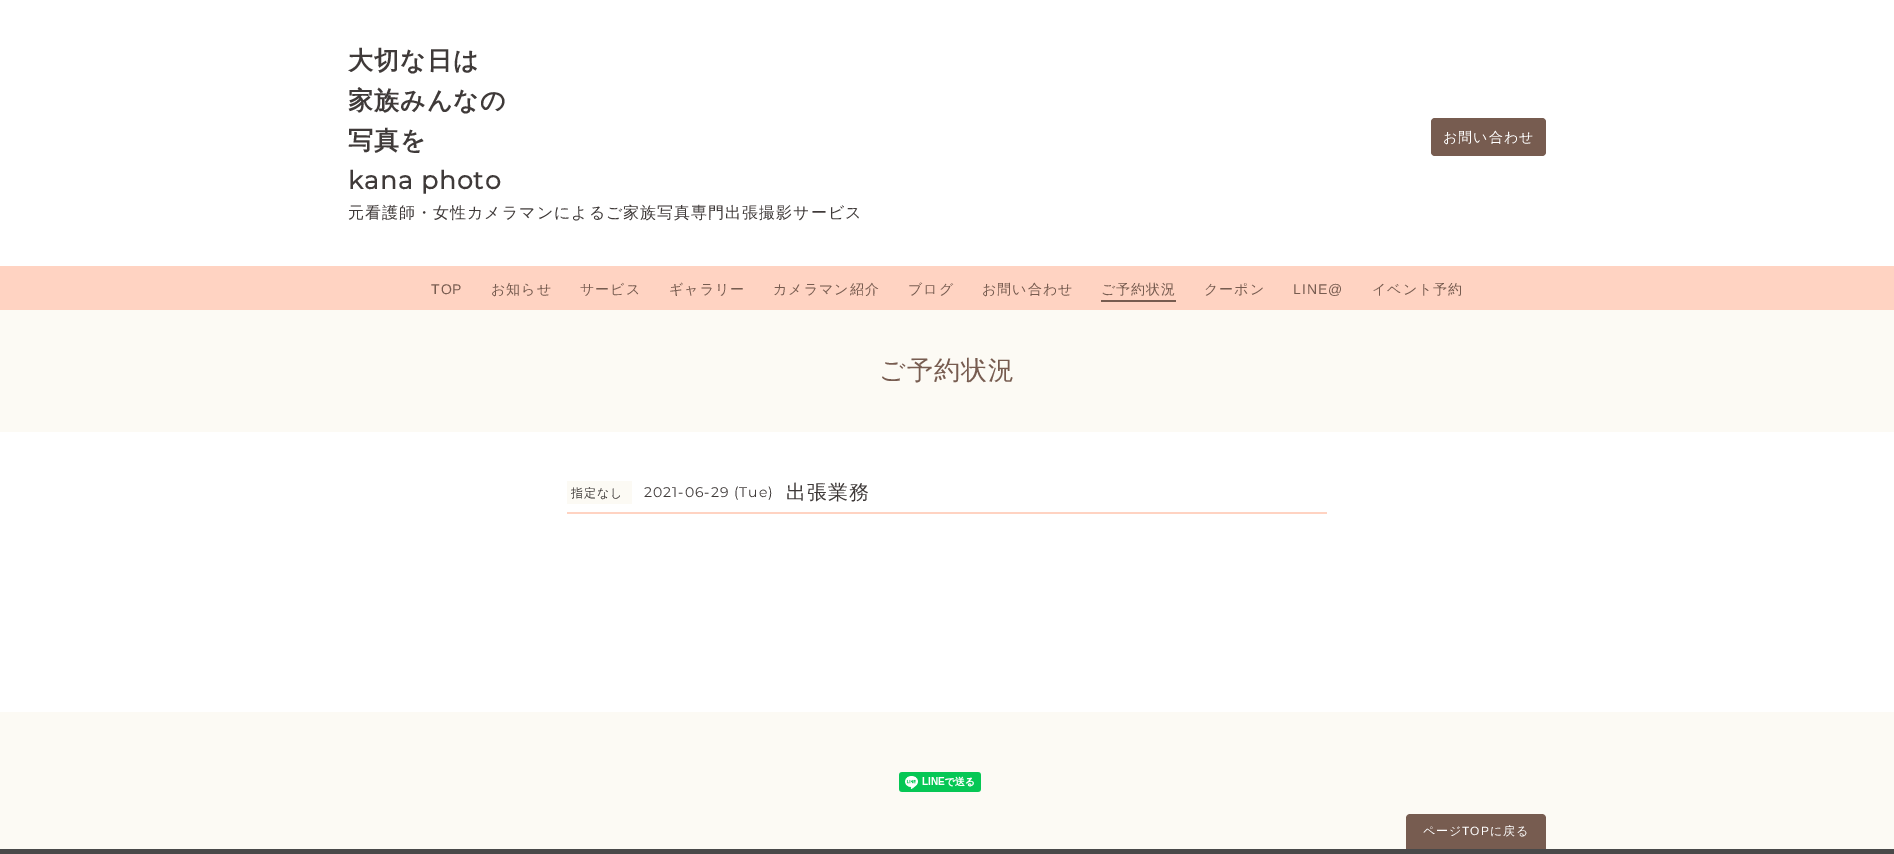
%!PS
<< /PageSize [1894 854] >> setpagedevice
/rgb { 3 { 255 div 3 1 roll } repeat setrgbcolor } def
/font { [ exch dup neg 0 0 3 -1 roll 0 0 ] selectfont } def
/roundrect { 5 dict begin { /r /h /w /y /x } { exch def } forall
  x r add y moveto x w add y 2 copy h add r arct x w add y h add x 1 index r arct
  x y h add x y r arct x y 2 copy exch w add exch r arct closepath end } def
/picture { 5 dict begin { /h /w /y /x /name } { exch def } forall
  gsave x y translate w h scale
  w h 8 [w 0 0 h 0 0] name (r) file false 3 colorimage grestore end } def
0 854 translate 1 -1 scale
4 setmiterlimit
255 255 255 rgb
0 0 1894 854 rectfill
119 92 80 rgb
1431 118 115 38 4 roundrect fill
[
  [0 266 1894 44 255 211 194]
  [1101 300 75 2 119 92 80]
  [0 310 1894 122 252 250 244]
  [567 512 760 2 255 211 194]
  [567 481 65 23 252 250 244]
  [0 712 1894 137 252 250 244]
] { aload pop rgb rectfill } forall
(img/1.rgb) 899 772 82 20 picture
119 92 80 rgb
1410 814 moveto 1542 814 lineto 1544 814 1546 816 1546 818 curveto 1546 849 lineto 1406 849 lineto 1406 818 lineto 1406 816 1408 814 1410 814 curveto closepath fill
73 73 73 rgb
0 849 1894 5 rectfill
/WenQuanYiZenHei-Bold 25 font
63 58 57 rgb
348 69 moveto 1 0 (大切な日は) ashow
348 109 moveto 1 0 (家族みんなの) ashow
348 149 moveto 1 0 (写真を) ashow
/Montserrat-Bold 25 font
348 189 moveto 1 0 (kana photo) ashow
/WenQuanYiZenHei-Medium 16 font
348 218 moveto 1 0 (元看護師・女性カメラマンによるご家族写真専門出張撮影サービス) ashow
/WenQuanYiZenHei-Medium 14 font
255 255 255 rgb
1443 142 moveto 1 0 (お問い合わせ) ashow
/LiberationSans-Regular 14 font
119 92 80 rgb
431 294 moveto 1 0 (TOP) ashow
/WenQuanYiZenHei-Medium 14 font
491 294 moveto 1 0 (お知らせ) ashow
580 294 moveto 1 0 (サービス) ashow
669 294 moveto 1 0 (ギャラリー) ashow
773 294 moveto 1 0 (カメラマン紹介) ashow
908 294 moveto 1 0 (ブログ) ashow
982 294 moveto 1 0 (お問い合わせ) ashow
1101 294 moveto 1 0 (ご予約状況) ashow
1204 294 moveto 1 0 (クーポン) ashow
/LiberationSans-Regular 14 font
1293 294 moveto 1 0 (LINE@) ashow
/WenQuanYiZenHei-Medium 14 font
1372 294 moveto 1 0 (イベント予約) ashow
/WenQuanYiZenHei-Medium 26 font
879 379 moveto 1 0 (ご予約状況) ashow
/WenQuanYiZenHei-Medium 12 font
63 58 57 rgb
571 497 moveto 1 0 (指定なし) ashow
/Montserrat-Thin 14 font
644 497 moveto 1 0 (2021-06-29 \(Tue\)) ashow
/WenQuanYiZenHei-Medium 20 font
786 499 moveto 1 0 (出張業務) ashow
/WenQuanYiZenHei-Medium 12 font
255 255 255 rgb
1423 835 moveto 1 0 (ページ) ashow
/LiberationSans-Regular 12 font
1462 835 moveto 1 0 (TOP) ashow
/WenQuanYiZenHei-Medium 12 font
1490 835 moveto 1 0 (に戻る) ashow
showpage
